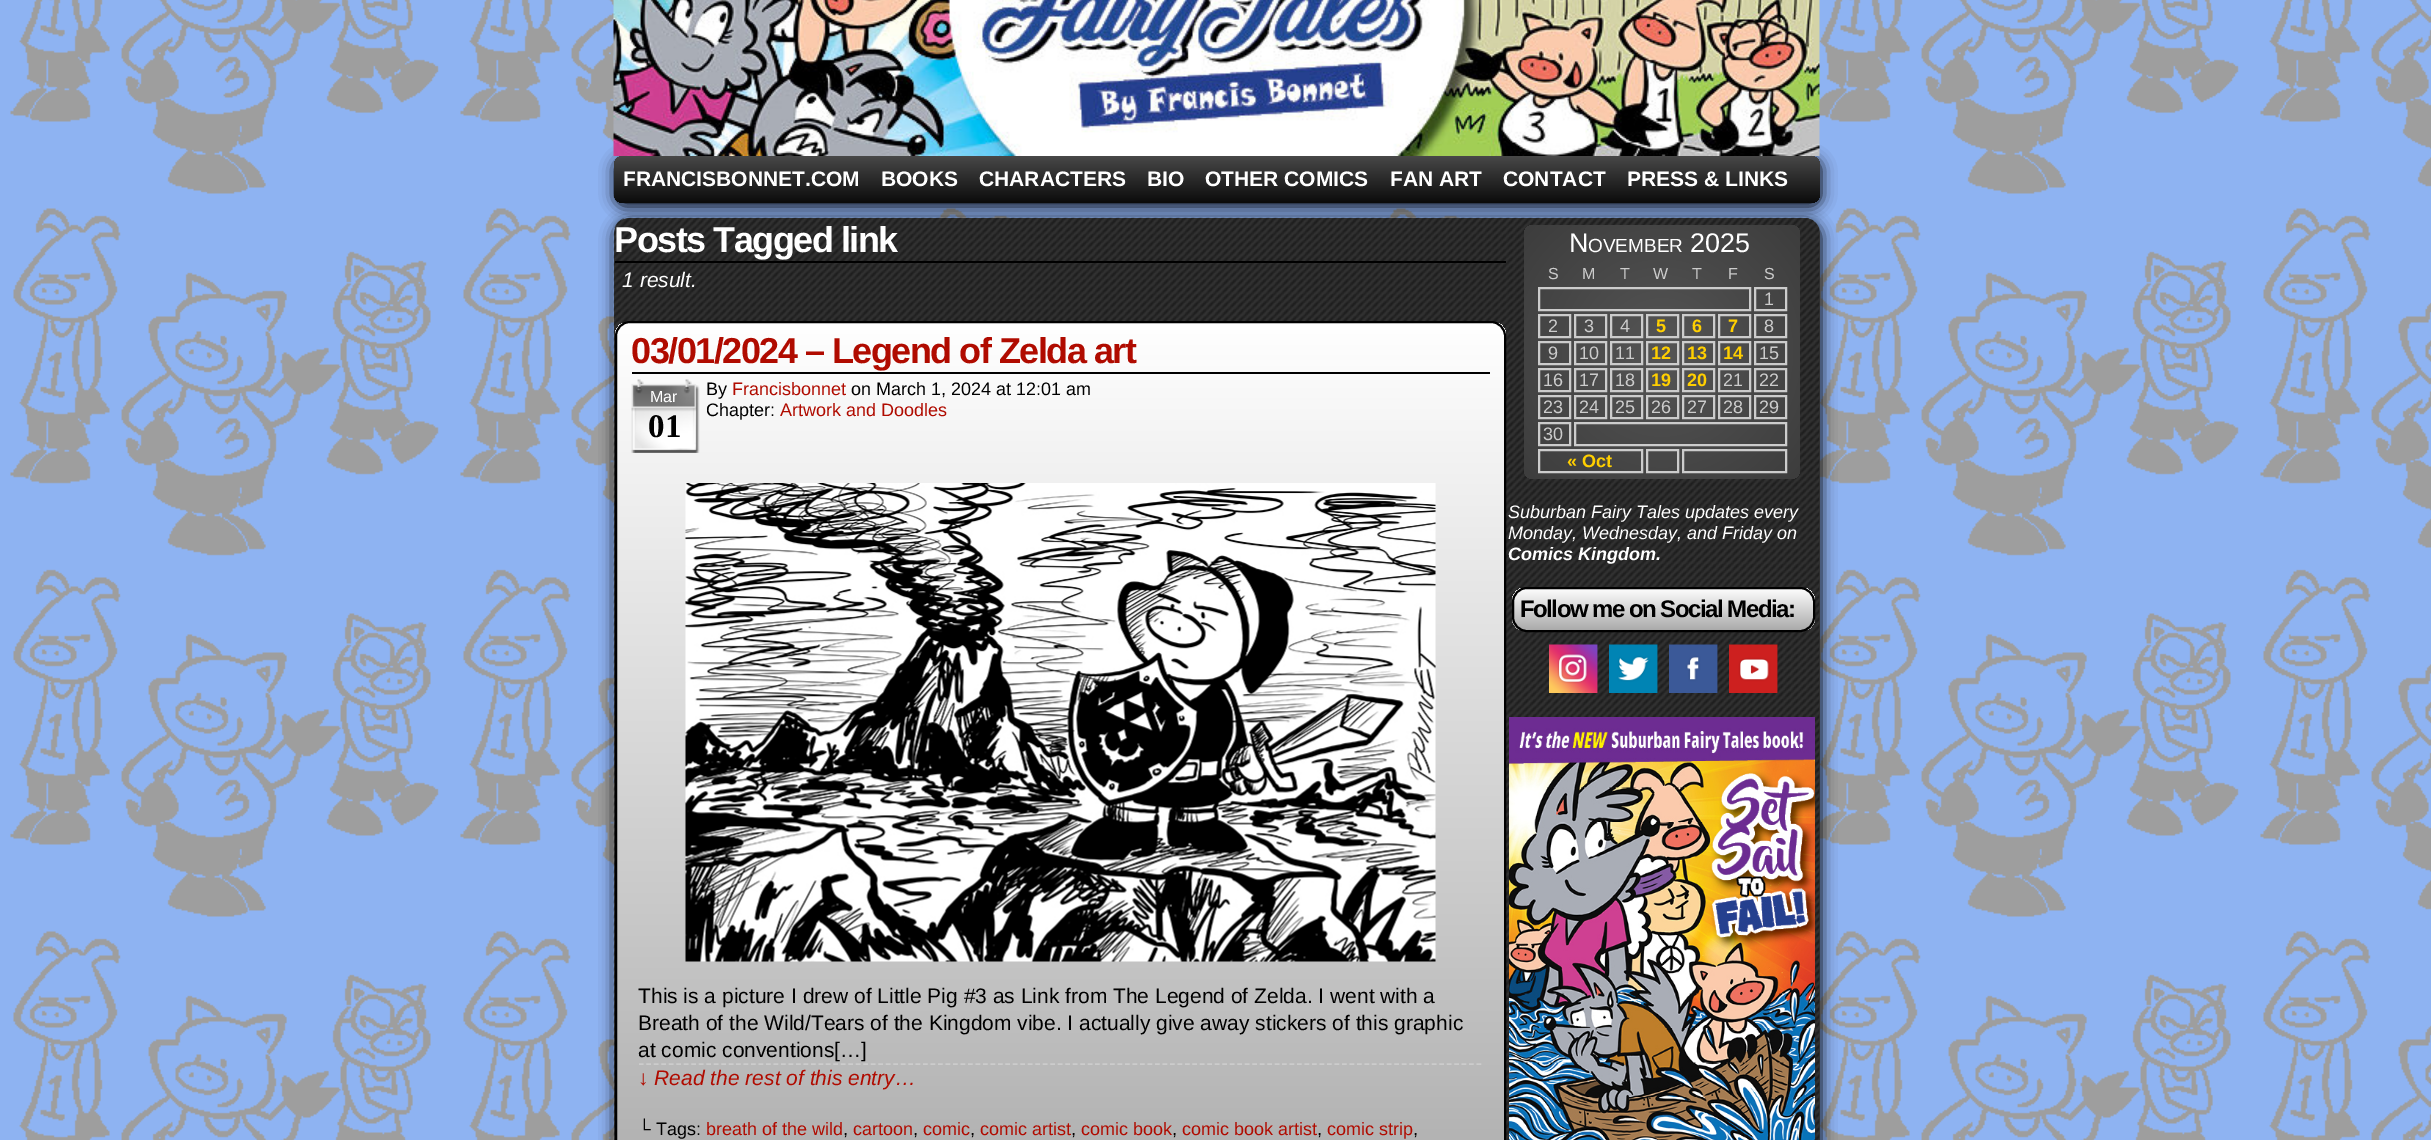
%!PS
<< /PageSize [2431 1140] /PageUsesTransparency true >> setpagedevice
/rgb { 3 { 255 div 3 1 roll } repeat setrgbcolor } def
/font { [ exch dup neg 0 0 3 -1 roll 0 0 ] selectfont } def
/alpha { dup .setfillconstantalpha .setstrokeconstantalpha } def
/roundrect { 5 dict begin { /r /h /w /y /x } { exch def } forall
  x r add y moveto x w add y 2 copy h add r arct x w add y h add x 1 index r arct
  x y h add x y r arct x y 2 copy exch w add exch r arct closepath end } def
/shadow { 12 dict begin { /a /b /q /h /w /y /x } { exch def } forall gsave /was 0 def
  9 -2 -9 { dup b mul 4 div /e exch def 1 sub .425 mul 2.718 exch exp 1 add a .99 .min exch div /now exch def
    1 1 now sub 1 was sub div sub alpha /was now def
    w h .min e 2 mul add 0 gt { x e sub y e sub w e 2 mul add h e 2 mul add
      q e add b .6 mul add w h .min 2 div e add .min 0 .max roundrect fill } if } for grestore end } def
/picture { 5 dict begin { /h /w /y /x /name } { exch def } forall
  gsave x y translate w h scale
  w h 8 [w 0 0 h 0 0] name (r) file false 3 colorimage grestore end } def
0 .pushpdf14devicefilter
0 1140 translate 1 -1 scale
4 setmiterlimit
142 179 242 rgb
0 0 2431 1140 rectfill
(img/1.rgb) 10 0 2421 1140 picture
0 0 0 rgb
615 159 1206 47 9 7.5 1 shadow
(img/2.rgb) 613 0 1207 156 picture
gsave 614 156 1206 47 9 roundrect clip newpath
<< /ShadingType 2 /ColorSpace /DeviceRGB /Coords [614 156 614 203] /Extend [true true] /Function << /FunctionType 2 /Domain [0 1] /C0 [0.282 0.282 0.282] /C1 [0.043 0.043 0.043] /N 1 >> >> shfill grestore
615 221 1206 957 15 7.5 1 shadow
51 51 51 rgb
614 218 1206 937 15 roundrect fill
(img/3.rgb) 613 217 1207 923 picture
0 0 0 rgb
615 261 891 2 rectfill
gsave
615 321 891 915 15 roundrect clip newpath
gsave 615 323 moveto 1506 323 lineto 1506 1140 lineto 615 1140 lineto closepath clip newpath
<< /ShadingType 2 /ColorSpace /DeviceRGB /Coords [617 323 617 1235] /Extend [true true] /Function << /FunctionType 2 /Domain [0 1] /C0 [1 1 1] /C1 [0.667 0.667 0.667] /N 1 >> >> shfill grestore
grestore
2 setlinewidth
616 322 889 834 14 roundrect stroke
632 372 858 2 rectfill
(img/4.rgb) 631 379 69 74 picture
(img/5.rgb) 685 483 751 479 picture
204 204 204 rgb
1.5 setlinewidth
[4.5 2.98] 0 setdash
639 1064 moveto 1482 1064 lineto stroke
gsave 1524 225 276 254 9 roundrect clip newpath 1662 352 translate 525 525 scale
<< /ShadingType 3 /ColorSpace /DeviceRGB /Coords [0 0 0 0 0 1] /Extend [true true] /Function << /FunctionType 2 /Domain [0 1] /C0 [0.333 0.333 0.333] /C1 [0.067 0.067 0.067] /N 1 >> >> shfill grestore
2 setlinewidth
[] 0 setdash
1539 288 211 22 rectstroke
1755 288 31 22 rectstroke
1539 315 31 22 rectstroke
1575 315 31 22 rectstroke
1611 315 31 22 rectstroke
1647 315 31 22 rectstroke
1683 315 31 22 rectstroke
1719 315 31 22 rectstroke
1755 315 31 22 rectstroke
1539 342 31 22 rectstroke
1575 342 31 22 rectstroke
1611 342 31 22 rectstroke
1647 342 31 22 rectstroke
1683 342 31 22 rectstroke
1719 342 31 22 rectstroke
1755 342 31 22 rectstroke
1539 369 31 22 rectstroke
1575 369 31 22 rectstroke
1611 369 31 22 rectstroke
1647 369 31 22 rectstroke
1683 369 31 22 rectstroke
1719 369 31 22 rectstroke
1755 369 31 22 rectstroke
1539 396 31 22 rectstroke
1575 396 31 22 rectstroke
1611 396 31 22 rectstroke
1647 396 31 22 rectstroke
1683 396 31 22 rectstroke
1719 396 31 22 rectstroke
1755 396 31 22 rectstroke
1539 423 31 22 rectstroke
1575 423 211 22 rectstroke
1539 450 103 22 rectstroke
1647 450 31 22 rectstroke
1683 450 103 22 rectstroke
gsave
1512 587 303 45 15 roundrect clip newpath
gsave 1512 588 moveto 1815 588 lineto 1815 630 lineto 1512 630 lineto closepath clip newpath
<< /ShadingType 2 /ColorSpace /DeviceRGB /Coords [1514 588 1514 630] /Extend [true true] /Function << /FunctionType 2 /Domain [0 1] /C0 [1 1 1] /C1 [0.667 0.667 0.667] /N 1 >> >> shfill grestore
grestore
0 0 0 rgb
1513 588 301 43 14 roundrect stroke
(img/6.rgb) 1549 644 49 49 picture
(img/7.rgb) 1609 644 49 49 picture
(img/8.rgb) 1669 644 49 49 picture
(img/9.rgb) 1729 644 49 49 picture
(img/10.rgb) 1509 717 306 423 picture
/LiberationSans-Bold 21 font
255 255 255 rgb
[
  [(FRANCISBONNET.COM) 623 186]
  [(BOOKS) 881 186]
  [(CHARACTERS) 979 186]
  [(BIO) 1147 186]
  [(OTHER COMICS) 1205 186]
  [(FAN ART) 1390 186]
  [(CONTACT) 1503 186]
  [(PRESS & LINKS) 1627 186]
] { aload pop moveto show } forall
/LiberationSans-Bold 36 font
614 252 moveto -1.5 0 (Posts Tagged link) ashow
/LiberationSans-Italic 21 font
622 287 moveto (1 result.) show
/LiberationSans-Bold 36 font
176 11 0 rgb
631 363 moveto -1.5 0 (03/01/2024 – Legend of Zelda art) ashow
/LiberationSans-Regular 16 font
255 255 255 rgb
650 402 moveto (Mar) show
/LiberationSerif-Bold 33 font
0 0 0 rgb
648 437 moveto (01) show
/LiberationSans-Regular 18 font
706 395 moveto (By) show
176 11 0 rgb
732 395 moveto (Francisbonnet) show
0 0 0 rgb
851 395 moveto (on March 1, 2024 at 12:01 am) show
gsave
707 378 783 42 rectclip
706 416 moveto (Chapter:) show
grestore
176 11 0 rgb
780 416 moveto (Artwork and Doodles) show
/LiberationSans-Regular 21 font
0 0 0 rgb
[
  [(This is a picture I drew of Little Pig #3 as Link from The Legend of Zelda. I went with a) 638 1003]
  [(Breath of the Wild/Tears of the Kingdom vibe. I actually give away stickers of this graphic) 638 1030]
  [(at comic conventions[…]) 638 1057]
] { aload pop moveto show } forall
/LiberationSans-Italic 21 font
176 11 0 rgb
638 1085 moveto (↓ Read the rest of this entry…) show
/LiberationSans-Regular 18 font
0 0 0 rgb
638 1135 moveto (└ Tags:) show
176 11 0 rgb
706 1135 moveto (breath of the wild) show
0 0 0 rgb
843 1135 moveto (,) show
176 11 0 rgb
853 1135 moveto (cartoon) show
0 0 0 rgb
913 1135 moveto (,) show
176 11 0 rgb
923 1135 moveto (comic) show
0 0 0 rgb
970 1135 moveto (,) show
176 11 0 rgb
980 1135 moveto (comic artist) show
0 0 0 rgb
1071 1135 moveto (,) show
176 11 0 rgb
1081 1135 moveto (comic book) show
0 0 0 rgb
1172 1135 moveto (,) show
176 11 0 rgb
1182 1135 moveto (comic book artist) show
0 0 0 rgb
1317 1135 moveto (,) show
176 11 0 rgb
1327 1135 moveto (comic strip) show
0 0 0 rgb
1413 1135 moveto (,) show
/LiberationSans-Regular 27 font
255 255 255 rgb
1569 252 moveto (N) show
/LiberationSans-Regular 19 font
1588 252 moveto (OVEMBER) show
/LiberationSans-Regular 27 font
1690 252 moveto (2025) show
/LiberationSans-Regular 16 font
204 204 204 rgb
[
  [(S) 1548 279]
  [(M) 1582 279]
  [(T) 1620 279]
  [(W) 1653 279]
  [(T) 1692 279]
  [(F) 1728 279]
  [(S) 1764 279]
] { aload pop moveto show } forall
/LiberationSans-Regular 18 font
[
  [(1) 1764 305]
  [(2) 1548 332]
  [(3) 1584 332]
  [(4) 1620 332]
] { aload pop moveto show } forall
/LiberationSans-Bold 18 font
255 207 0 rgb
[
  [(5) 1656 332]
  [(6) 1692 332]
  [(7) 1728 332]
] { aload pop moveto show } forall
/LiberationSans-Regular 18 font
204 204 204 rgb
[
  [(8) 1764 332]
  [(9) 1548 359]
  [(10) 1579 359]
  [(11) 1615 359]
] { aload pop moveto show } forall
/LiberationSans-Bold 18 font
255 207 0 rgb
[
  [(12) 1651 359]
  [(13) 1687 359]
  [(14) 1723 359]
] { aload pop moveto show } forall
/LiberationSans-Regular 18 font
204 204 204 rgb
[
  [(15) 1759 359]
  [(16) 1543 386]
  [(17) 1579 386]
  [(18) 1615 386]
] { aload pop moveto show } forall
/LiberationSans-Bold 18 font
255 207 0 rgb
1651 386 moveto (19) show
1687 386 moveto (20) show
/LiberationSans-Regular 18 font
204 204 204 rgb
[
  [(21) 1723 386]
  [(22) 1759 386]
  [(23) 1543 413]
  [(24) 1579 413]
  [(25) 1615 413]
  [(26) 1651 413]
  [(27) 1687 413]
  [(28) 1723 413]
  [(29) 1759 413]
  [(30) 1543 440]
] { aload pop moveto show } forall
/LiberationSans-Bold 18 font
255 207 0 rgb
1567 467 moveto (« Oct) show
/LiberationSans-Italic 18 font
255 255 255 rgb
1508 518 moveto (Suburban Fairy Tales updates every) show
1508 539 moveto (Monday, Wednesday, and Friday on) show
/LiberationSans-BoldItalic 18 font
1508 560 moveto (Comics Kingdom.) show
/LiberationSans-Bold 24 font
0 0 0 rgb
1520 617 moveto -1.5 0 (Follow me on Social Media:) ashow
.poppdf14devicefilter showpage
